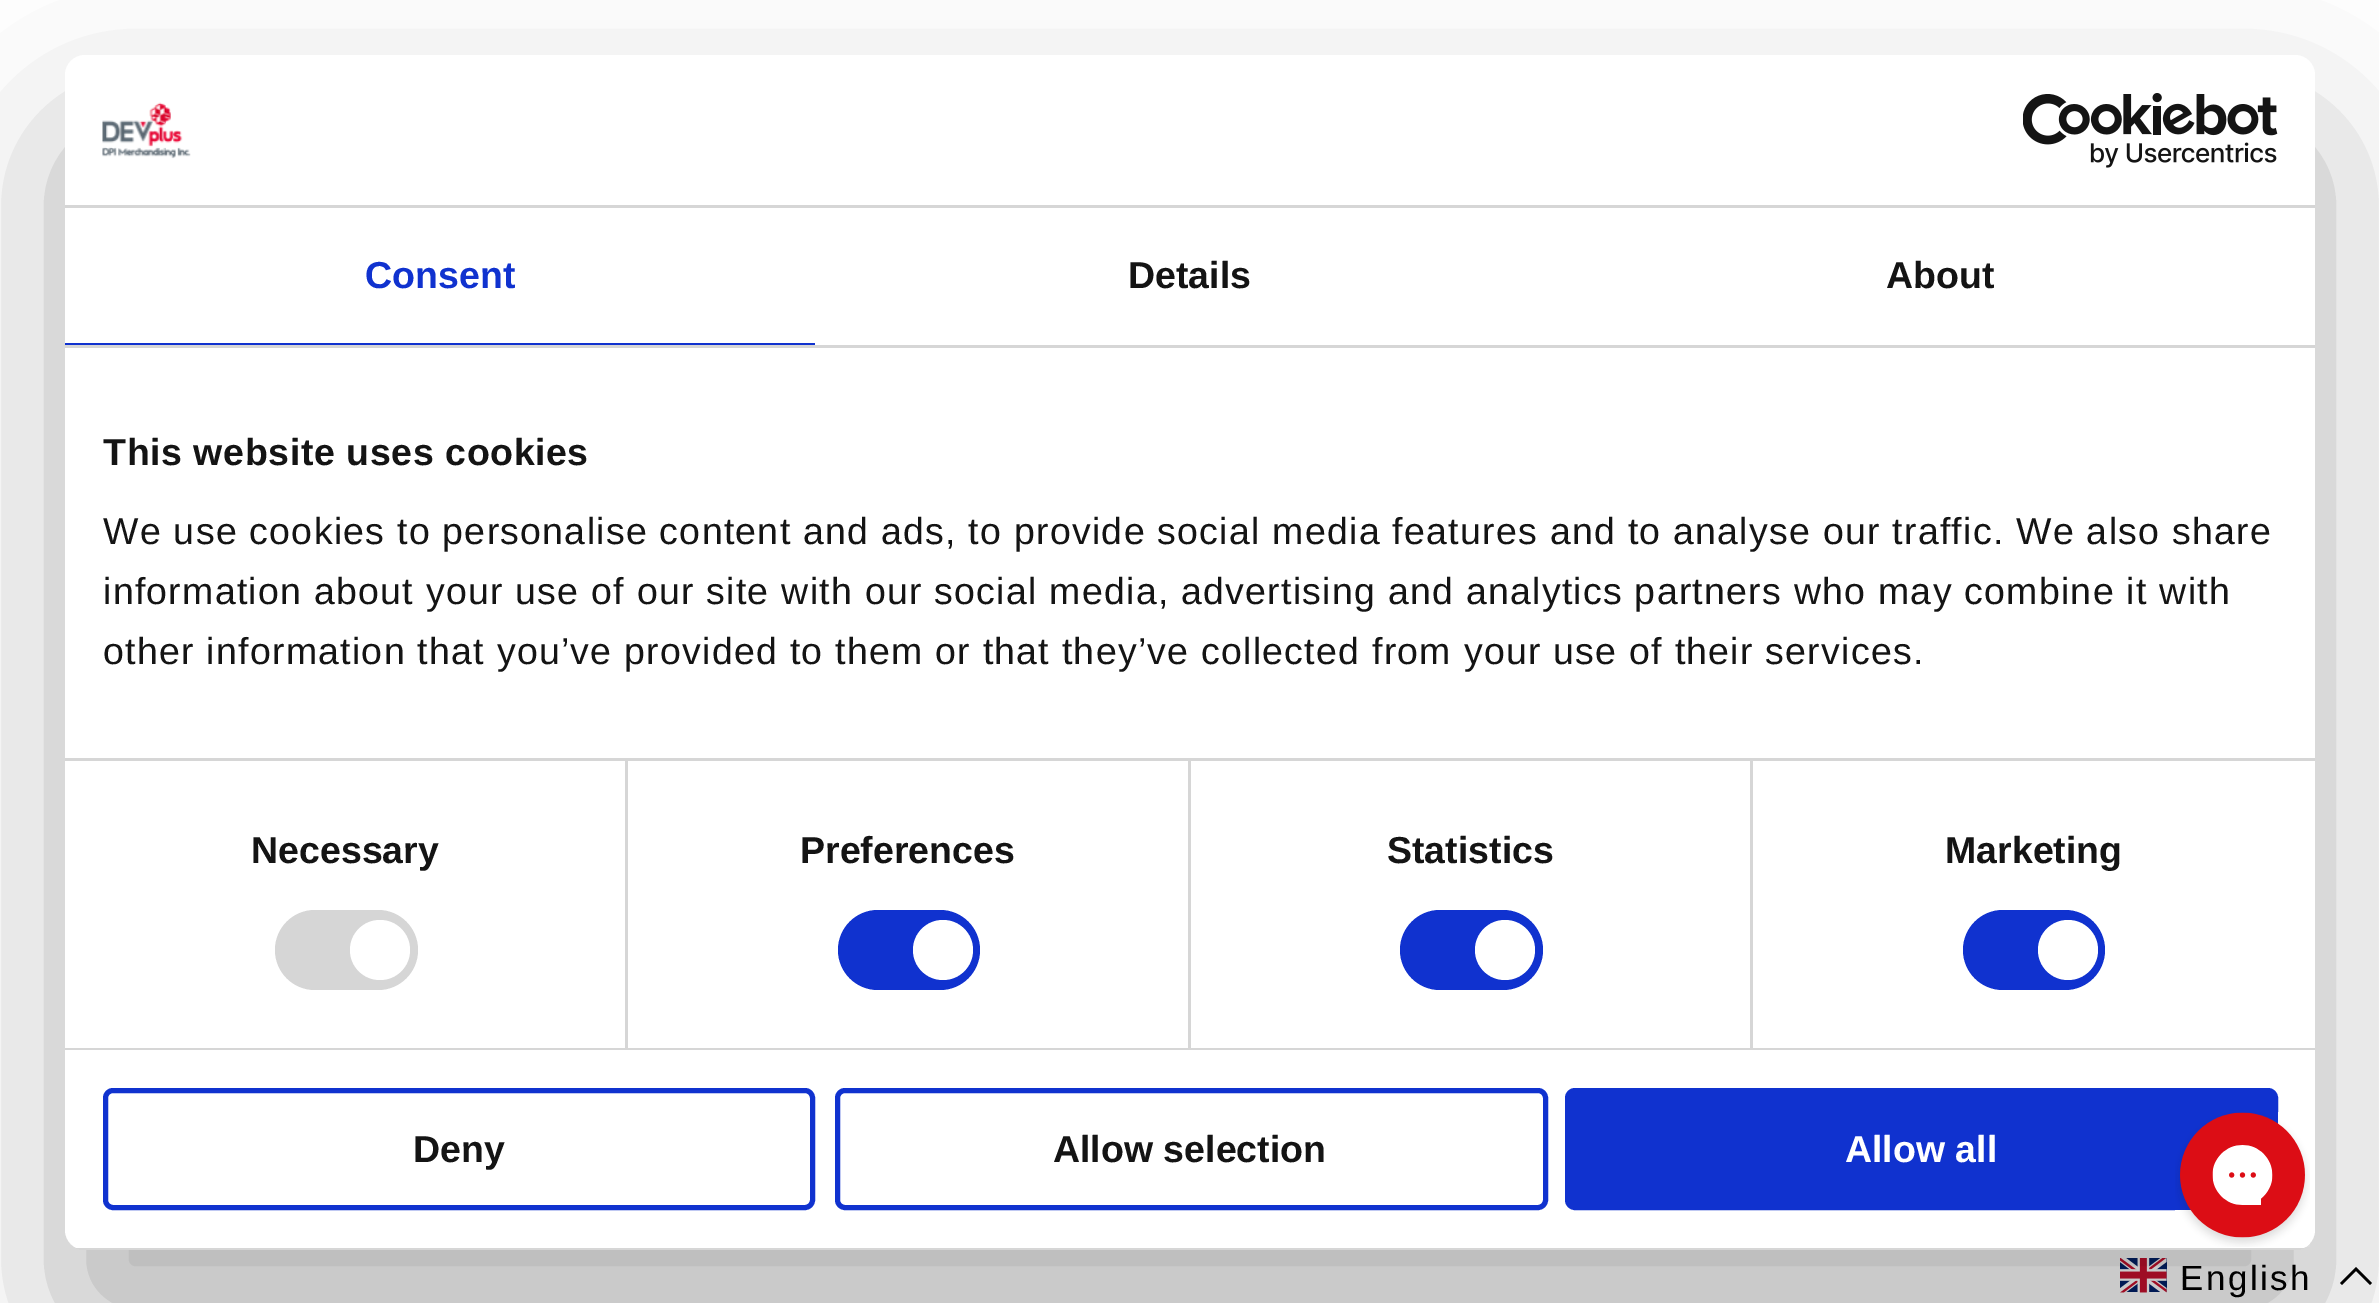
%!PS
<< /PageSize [2379 1303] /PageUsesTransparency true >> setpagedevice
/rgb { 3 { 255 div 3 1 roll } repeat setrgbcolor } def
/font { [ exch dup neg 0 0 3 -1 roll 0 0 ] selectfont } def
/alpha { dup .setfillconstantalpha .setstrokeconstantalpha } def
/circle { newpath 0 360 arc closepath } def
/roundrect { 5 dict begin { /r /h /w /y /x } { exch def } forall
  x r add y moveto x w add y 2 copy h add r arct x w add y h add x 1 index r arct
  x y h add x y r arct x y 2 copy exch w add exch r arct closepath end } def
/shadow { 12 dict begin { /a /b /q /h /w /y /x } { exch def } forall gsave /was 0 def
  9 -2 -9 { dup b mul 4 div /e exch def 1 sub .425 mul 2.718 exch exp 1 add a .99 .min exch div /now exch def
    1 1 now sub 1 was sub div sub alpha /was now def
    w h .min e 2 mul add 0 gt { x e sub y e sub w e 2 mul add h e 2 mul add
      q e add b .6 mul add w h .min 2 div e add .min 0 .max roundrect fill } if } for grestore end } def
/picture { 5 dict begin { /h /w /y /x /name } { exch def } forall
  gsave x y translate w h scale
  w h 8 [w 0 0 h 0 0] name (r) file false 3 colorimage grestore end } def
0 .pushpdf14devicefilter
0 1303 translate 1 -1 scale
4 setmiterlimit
255 255 255 rgb
0 0 2379 1303 rectfill
(img/4.rgb) 2120 1258 47 35 picture
0 0 0 rgb
2.5 setlinewidth
2371 1284 moveto 2356 1269 lineto 2341 1284 lineto stroke
65 135 2250 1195 20 85 0.3 shadow
255 255 255 rgb
65 55 2250 1195 20 roundrect fill
214 214 214 rgb
65 205 2250 3 rectfill
(img/1.rgb) 102 102 89 57 picture
(img/2.rgb) 2023 93 255 75 picture
[
  [65 345 2250 3 214 214 214]
  [65 343 750 2 16 50 207]
  [625 760 3 288 214 214 214]
  [1188 760 3 288 214 214 214]
  [1750 760 3 288 214 214 214]
  [65 758 2250 3 214 214 214]
  [65 1048 2250 2 214 214 214]
] { aload pop rgb rectfill } forall
275 910 143 80 40 roundrect fill
255 255 255 rgb
380 950 30 circle fill
16 50 207 rgb
838 910 142 80 40 roundrect fill
255 255 255 rgb
943 950 30 circle fill
16 50 207 rgb
1400 910 143 80 40 roundrect fill
255 255 255 rgb
1505 950 30 circle fill
16 50 207 rgb
1963 910 142 80 40 roundrect fill
255 255 255 rgb
2068 950 30 circle fill
gsave
65 55 2250 1195 20 roundrect clip newpath
214 214 214 rgb
76 1248 2228 2 rectfill
grestore
16 50 207 rgb
5 setlinewidth
105.5 1090.5 707 117 7.5 roundrect stroke
837.5 1090.5 708 117 7.5 roundrect stroke
1567.5 1090.5 708 117 7.5 roundrect gsave fill grestore
stroke
(img/3.rgb) 2175 1112 135 135 picture
/LiberationSans-Bold 37.5 font
365 288 moveto (Consent) show
20 20 20 rgb
1128 288 moveto (Details) show
1886 288 moveto (About) show
103 465 moveto 0.6 0 (This website uses cookies) ashow
/LiberationSans-Regular 37.5 font
103 544 moveto 1.25 0 (We use cookies to personalise content and ads, to provide social media features and to analyse our traffic. We also share) ashow
103 604 moveto 1.25 0 (information about your use of our site with our social media, advertising and analytics partners who may combine it with) ashow
103 664 moveto 1.25 0 (other information that you’ve provided to them or that they’ve collected from your use of their services.) ashow
/LiberationSans-Bold 37.5 font
[
  [(Necessary) 251 863]
  [(Preferences) 800 863]
  [(Statistics) 1387 863]
  [(Marketing) 1945 863]
  [(Deny) 413 1162]
  [(Allow selection) 1053 1162]
] { aload pop moveto show } forall
255 255 255 rgb
1845 1162 moveto (Allow all) show
/LiberationSans-Regular 35 font
0 0 0 rgb
2180 1290 moveto 2.5 0 (English) ashow
.poppdf14devicefilter showpage
